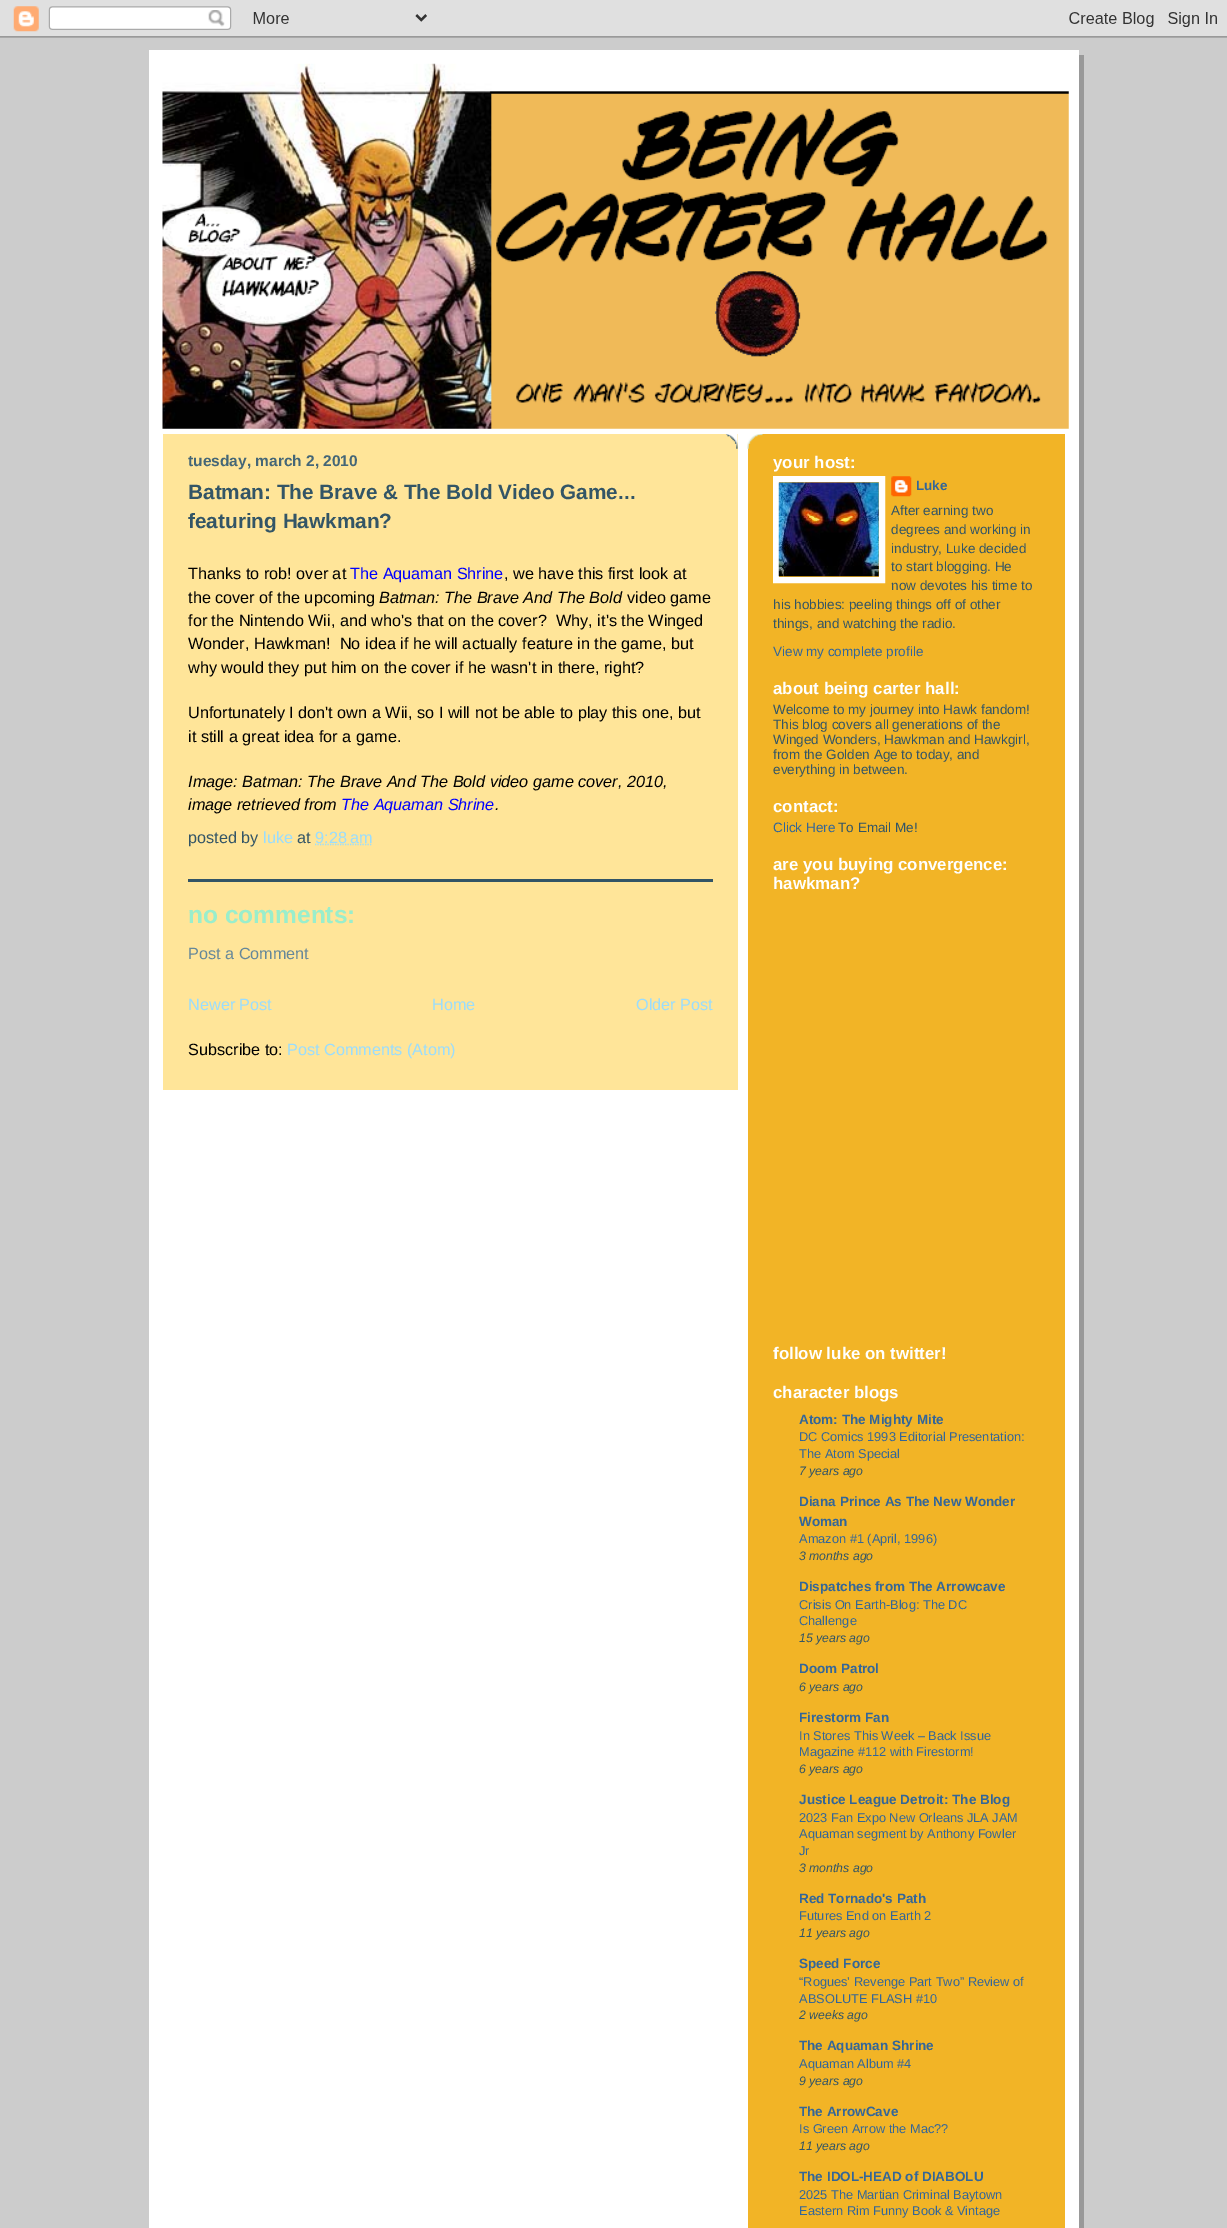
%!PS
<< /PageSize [1227 2228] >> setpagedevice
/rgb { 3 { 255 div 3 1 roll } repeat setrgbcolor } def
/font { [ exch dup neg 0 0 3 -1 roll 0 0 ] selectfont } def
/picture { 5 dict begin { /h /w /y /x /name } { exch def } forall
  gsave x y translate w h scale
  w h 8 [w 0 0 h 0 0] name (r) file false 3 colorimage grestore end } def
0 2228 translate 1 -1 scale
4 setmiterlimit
204 204 204 rgb
0 0 1227 2228 rectfill
(img/1.rgb) 0 0 1227 38 picture
153 153 153 rgb
1079 55 5 2173 rectfill
255 255 255 rgb
149 50 930 2178 rectfill
(img/2.rgb) 162 63 907 366 picture
255 229 153 rgb
163 434 575 656 rectfill
(img/3.rgb) 726 434 12 15 picture
153 221 255 rgb
1.2 setlinewidth
[1.25 1.25] 0 setdash
315 844.5 moveto 372.5 844.5 lineto stroke
51 85 102 rgb
188 879 525 3 rectfill
242 180 38 rgb
748 434 317 1794 rectfill
(img/4.rgb) 747 434 16 15 picture
255 255 255 rgb
6 setlinewidth
[] 0 setdash
776 479 106 101 rectstroke
(img/5.rgb) 778 482 101 95 picture
(img/6.rgb) 891 476 21 21 picture
/LiberationSans-Bold 15.5 font
68 102 119 rgb
188 466 moveto (tuesday, march 2, 2010) show
/LiberationSans-Bold 20.75 font
51 85 102 rgb
188 499 moveto (Batman: The Brave & The Bold Video Game...) show
188 528 moveto (featuring Hawkman?) show
/LiberationSans-Regular 16.25 font
0 0 0 rgb
188 579 moveto (Thanks to rob! over at) show
0 0 255 rgb
350 579 moveto (The Aquaman Shrine) show
0 0 0 rgb
504 579 moveto (, we have this first look at) show
188 603 moveto (the cover of the upcoming) show
/LiberationSans-Italic 16.25 font
379 603 moveto (Batman: The Brave And The Bold) show
/LiberationSans-Regular 16.25 font
[
  [(video game) 627 603]
  [(for the Nintendo Wii, and who's that on the cover?  Why, it's the Winged) 188 626]
  [(Wonder, Hawkman!  No idea if he will actually feature in the game, but) 188 649]
  [(why would they put him on the cover if he wasn't in there, right?) 188 673]
  [(Unfortunately I don't own a Wii, so I will not be able to play this one, but) 188 718]
  [(it still a great idea for a game.) 188 742]
] { aload pop moveto show } forall
/LiberationSans-Italic 16.25 font
188 787 moveto (Image: Batman: The Brave And The Bold video game cover, 2010,) show
188 810 moveto (image retrieved from) show
0 0 255 rgb
341 810 moveto (The Aquaman Shrine) show
0 0 0 rgb
495 810 moveto (.) show
/LiberationSans-Regular 16.25 font
51 85 102 rgb
188 843 moveto (posted by) show
153 221 255 rgb
263 843 moveto (luke) show
51 85 102 rgb
297 843 moveto (at) show
153 221 255 rgb
315 843 moveto (9:28 am) show
/LiberationSans-Bold 24.5 font
153 238 204 rgb
188 923 moveto (no comments:) show
/LiberationSans-Regular 16.25 font
102 136 153 rgb
188 959 moveto (Post a Comment) show
153 221 255 rgb
[
  [(Newer Post) 188 1010]
  [(Home) 432 1010]
  [(Older Post) 636 1010]
] { aload pop moveto show } forall
0 0 0 rgb
188 1055 moveto (Subscribe to:) show
153 221 255 rgb
287 1055 moveto (Post Comments \(Atom\)) show
/LiberationSans-Bold 16.9 font
255 255 255 rgb
773 468 moveto (your host:) show
/LiberationSans-Bold 13.5 font
51 102 153 rgb
916 490 moveto (Luke) show
/LiberationSans-Regular 13.5 font
51 85 102 rgb
[
  [(After earning two) 891 515]
  [(degrees and working in) 891 534]
  [(industry, Luke decided) 891 553]
  [(to start blogging. He) 891 571]
  [(now devotes his time to) 891 590]
  [(his hobbies: peeling things off of other) 773 609]
  [(things, and watching the radio.) 773 628]
] { aload pop moveto show } forall
51 102 153 rgb
773 656 moveto (View my complete profile) show
/LiberationSans-Bold 16.9 font
255 255 255 rgb
773 694 moveto (about being carter hall:) show
/LiberationSans-Regular 13.5 font
51 85 102 rgb
[
  [(Welcome to my journey into Hawk fandom!) 773 714]
  [(This blog covers all generations of the) 773 729]
  [(Winged Wonders, Hawkman and Hawkgirl,) 773 744]
  [(from the Golden Age to today, and) 773 759]
  [(everything in between.) 773 774]
] { aload pop moveto show } forall
/LiberationSans-Bold 16.9 font
255 255 255 rgb
773 812 moveto (contact:) show
/LiberationSans-Regular 13.5 font
51 102 153 rgb
773 832 moveto (Click Here) show
51 85 102 rgb
838 832 moveto (To Email Me!) show
/LiberationSans-Bold 16.9 font
255 255 255 rgb
[
  [(are you buying convergence:) 773 870]
  [(hawkman?) 773 889]
  [(follow luke on twitter!) 773 1359]
  [(character blogs) 773 1398]
] { aload pop moveto show } forall
/LiberationSans-Bold 13.5 font
51 102 153 rgb
799 1424 moveto (Atom: The Mighty Mite) show
/LiberationSans-Regular 12.8 font
799 1441 moveto (DC Comics 1993 Editorial Presentation:) show
799 1458 moveto (The Atom Special) show
/LiberationSans-Italic 12.25 font
51 85 102 rgb
799 1475 moveto (7 years ago) show
/LiberationSans-Bold 13.5 font
51 102 153 rgb
799 1506 moveto (Diana Prince As The New Wonder) show
799 1526 moveto (Woman) show
/LiberationSans-Regular 12.8 font
799 1543 moveto (Amazon #1 \(April, 1996\)) show
/LiberationSans-Italic 12.25 font
51 85 102 rgb
799 1560 moveto (3 months ago) show
/LiberationSans-Bold 13.5 font
51 102 153 rgb
799 1591 moveto (Dispatches from The Arrowcave) show
/LiberationSans-Regular 12.8 font
799 1609 moveto (Crisis On Earth-Blog: The DC) show
799 1625 moveto (Challenge) show
/LiberationSans-Italic 12.25 font
51 85 102 rgb
799 1642 moveto (15 years ago) show
/LiberationSans-Bold 13.5 font
51 102 153 rgb
799 1673 moveto (Doom Patrol) show
/LiberationSans-Italic 12.25 font
51 85 102 rgb
799 1691 moveto (6 years ago) show
/LiberationSans-Bold 13.5 font
51 102 153 rgb
799 1722 moveto (Firestorm Fan) show
/LiberationSans-Regular 12.8 font
799 1740 moveto (In Stores This Week – Back Issue) show
799 1756 moveto (Magazine #112 with Firestorm!) show
/LiberationSans-Italic 12.25 font
51 85 102 rgb
799 1773 moveto (6 years ago) show
/LiberationSans-Bold 13.5 font
51 102 153 rgb
799 1804 moveto (Justice League Detroit: The Blog) show
/LiberationSans-Regular 12.8 font
[
  [(2023 Fan Expo New Orleans JLA JAM) 799 1822]
  [(Aquaman segment by Anthony Fowler) 799 1838]
  [(Jr) 799 1855]
] { aload pop moveto show } forall
/LiberationSans-Italic 12.25 font
51 85 102 rgb
799 1872 moveto (3 months ago) show
/LiberationSans-Bold 13.5 font
51 102 153 rgb
799 1903 moveto (Red Tornado's Path) show
/LiberationSans-Regular 12.8 font
799 1920 moveto (Futures End on Earth 2) show
/LiberationSans-Italic 12.25 font
51 85 102 rgb
799 1937 moveto (11 years ago) show
/LiberationSans-Bold 13.5 font
51 102 153 rgb
799 1968 moveto (Speed Force) show
/LiberationSans-Regular 12.8 font
799 1986 moveto (“Rogues’ Revenge Part Two” Review of) show
799 2003 moveto (ABSOLUTE FLASH #10) show
/LiberationSans-Italic 12.25 font
51 85 102 rgb
799 2019 moveto (2 weeks ago) show
/LiberationSans-Bold 13.5 font
51 102 153 rgb
799 2050 moveto (The Aquaman Shrine) show
/LiberationSans-Regular 12.8 font
799 2068 moveto (Aquaman Album #4) show
/LiberationSans-Italic 12.25 font
51 85 102 rgb
799 2085 moveto (9 years ago) show
/LiberationSans-Bold 13.5 font
51 102 153 rgb
799 2116 moveto (The ArrowCave) show
/LiberationSans-Regular 12.8 font
799 2133 moveto (Is Green Arrow the Mac??) show
/LiberationSans-Italic 12.25 font
51 85 102 rgb
799 2150 moveto (11 years ago) show
/LiberationSans-Bold 13.5 font
51 102 153 rgb
799 2181 moveto (The IDOL-HEAD of DIABOLU) show
/LiberationSans-Regular 12.8 font
799 2199 moveto (2025 The Martian Criminal Baytown) show
799 2215 moveto (Eastern Rim Funny Book & Vintage) show
showpage
